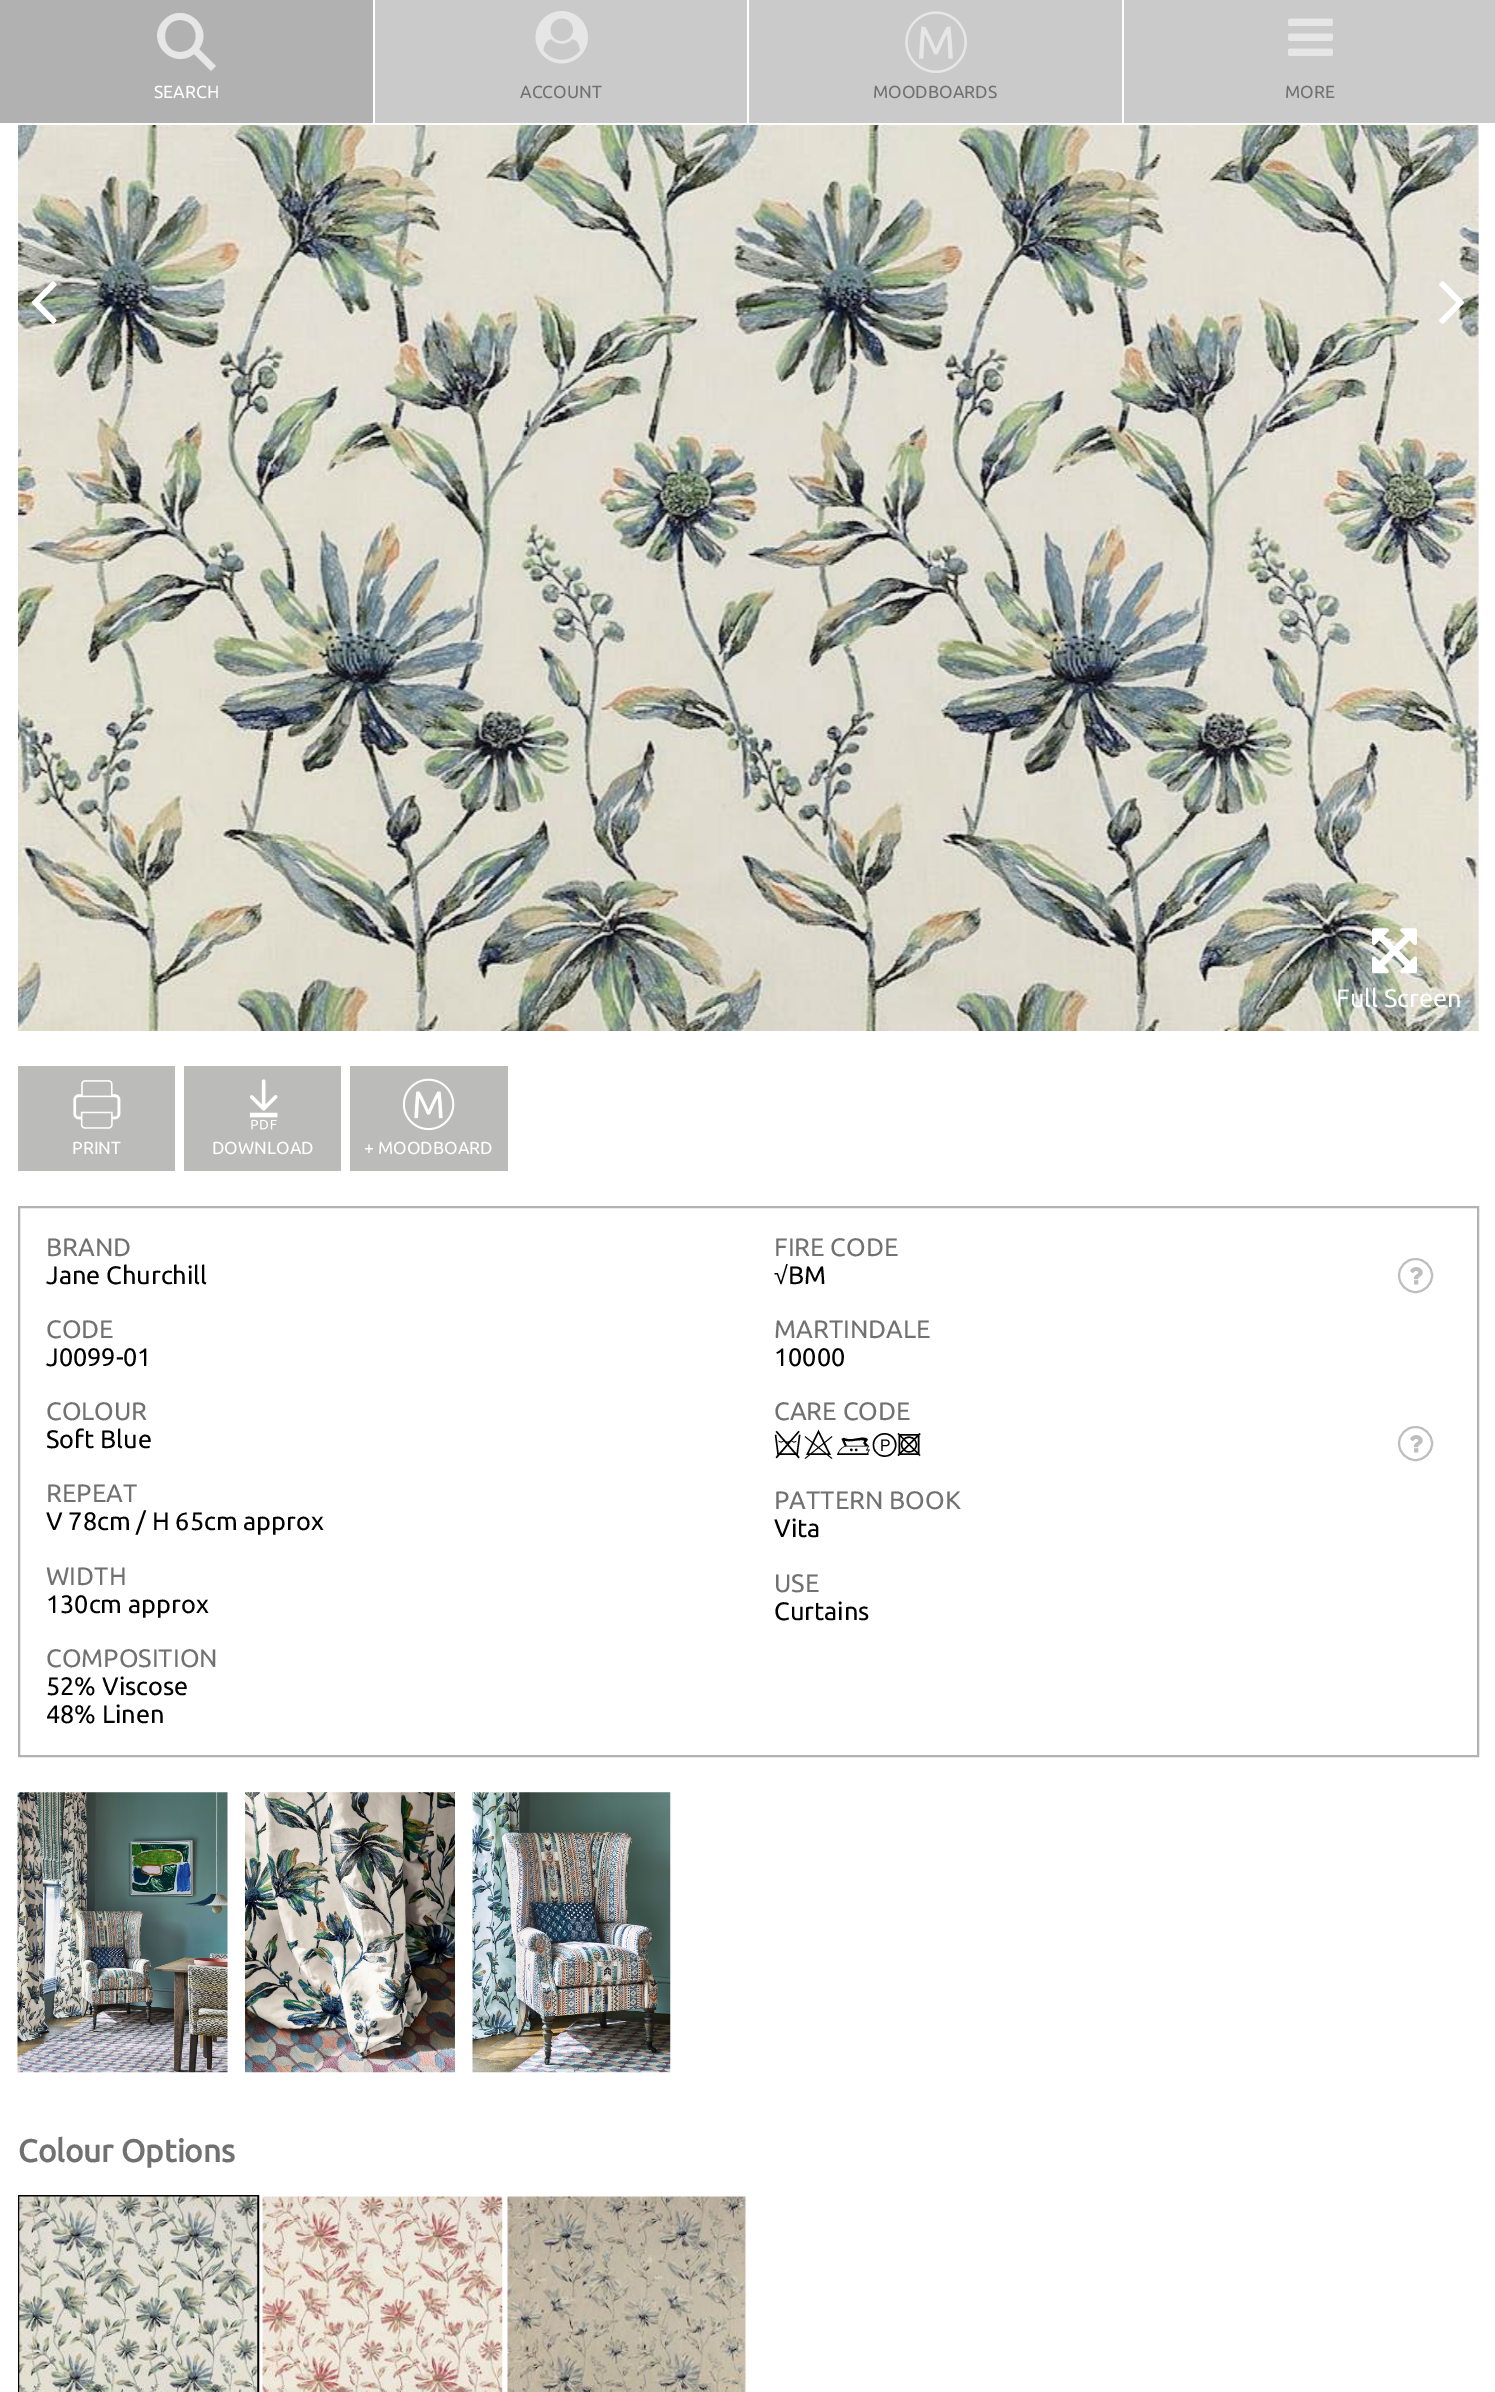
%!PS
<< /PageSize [1495 2392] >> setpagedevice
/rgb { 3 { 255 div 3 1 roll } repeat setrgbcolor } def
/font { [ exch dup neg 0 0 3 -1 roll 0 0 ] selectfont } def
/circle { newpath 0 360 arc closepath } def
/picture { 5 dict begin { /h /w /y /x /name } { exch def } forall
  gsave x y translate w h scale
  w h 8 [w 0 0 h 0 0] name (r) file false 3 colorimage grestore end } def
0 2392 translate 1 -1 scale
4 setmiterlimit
255 255 255 rgb
0 0 1495 2392 rectfill
202 202 202 rgb
375 0 1120 123 rectfill
177 177 177 rgb
0 0 373 123 rectfill
230 230 230 rgb
216 66 moveto 199 49 lineto 215 27 184 0 164 20 curveto 144 40 172 71 194 54 curveto 211 71 lineto closepath 180 52 moveto 160 52 160 20 180 20 curveto 201 20 201 52 180 52 curveto closepath fill
(img/1.rgb) 535 11 53 53 picture
255 255 255 rgb
747 0 2 123 rectfill
(img/2.rgb) 905 11 62 62 picture
1122 0 2 123 rectfill
(img/3.rgb) 1288 18 45 38 picture
(img/6.rgb) 18 125 1461 906 picture
(img/4.rgb) 31 281 26 43 picture
(img/5.rgb) 1439 281 25 43 picture
(img/7.rgb) 1372 928 45 46 picture
187 187 185 rgb
18 1066 157 105 rectfill
(img/8.rgb) 73 1080 48 49 picture
184 1066 157 105 rectfill
(img/9.rgb) 249 1079 29 51 picture
350 1066 158 105 rectfill
(img/10.rgb) 403 1078 52 53 picture
178 178 178 rgb
2 setlinewidth
19 1207 1459 549 rectstroke
190 190 190 rgb
1415.5 1275.5 16.5 circle stroke
(img/11.rgb) 1410 1267 13 18 picture
1415.5 1443.5 16.5 circle stroke
(img/11.rgb) 1410 1435 13 18 picture
(img/12.rgb) 17 1792 211 281 picture
(img/13.rgb) 245 1792 210 281 picture
(img/14.rgb) 472 1792 199 281 picture
0 0 0 rgb
19 2196 239 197 rectstroke
(img/15.rgb) 19 2196 239 196 picture
(img/16.rgb) 262 2196 241 196 picture
(img/17.rgb) 507 2196 239 196 picture
/Ubuntu-Regular 17.5 font
255 255 255 rgb
154 98 moveto (SEARCH) show
113 113 113 rgb
[
  [(ACCOUNT) 520 98]
  [(MOODBOARDS) 873 98]
  [(MORE) 1285 98]
] { aload pop moveto show } forall
/Ubuntu-Regular 25.25 font
255 255 255 rgb
1336 1007 moveto (Full Screen) show
/Ubuntu-Regular 17.5 font
[
  [(PRINT) 72 1154]
  [(DOWNLOAD) 212 1154]
  [(+ MOODBOARD) 364 1154]
] { aload pop moveto show } forall
/Ubuntu-Regular 25.25 font
113 113 113 rgb
46 1256 moveto (BRAND) show
0 0 0 rgb
46 1284 moveto (Jane Churchill) show
113 113 113 rgb
774 1256 moveto (FIRE CODE) show
/LiberationSans-Regular 25.25 font
0 0 0 rgb
774 1284 moveto (√) show
/Ubuntu-Regular 25.25 font
788 1284 moveto (BM) show
113 113 113 rgb
46 1338 moveto (CODE) show
0 0 0 rgb
46 1366 moveto (J0099-01) show
113 113 113 rgb
774 1338 moveto (MARTINDALE) show
0 0 0 rgb
774 1366 moveto (10000) show
113 113 113 rgb
46 1420 moveto (COLOUR) show
0 0 0 rgb
46 1448 moveto (Soft Blue) show
113 113 113 rgb
774 1420 moveto (CARE CODE) show
/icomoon-Regular 35 font
0 0 0 rgb
774 1455 moveto (Q8+T3) show
/Ubuntu-Regular 25.25 font
113 113 113 rgb
46 1502 moveto (REPEAT) show
0 0 0 rgb
46 1530 moveto (V 78cm / H 65cm approx) show
113 113 113 rgb
774 1509 moveto (PATTERN BOOK) show
0 0 0 rgb
774 1537 moveto (Vita) show
113 113 113 rgb
46 1585 moveto (WIDTH) show
0 0 0 rgb
46 1613 moveto (130cm approx) show
113 113 113 rgb
774 1592 moveto (USE) show
0 0 0 rgb
774 1620 moveto (Curtains) show
113 113 113 rgb
46 1667 moveto (COMPOSITION) show
0 0 0 rgb
46 1695 moveto (52% Viscose) show
46 1723 moveto (48% Linen) show
/Ubuntu-Bold 31.5 font
113 113 113 rgb
18 2162 moveto (Colour Options) show
showpage
